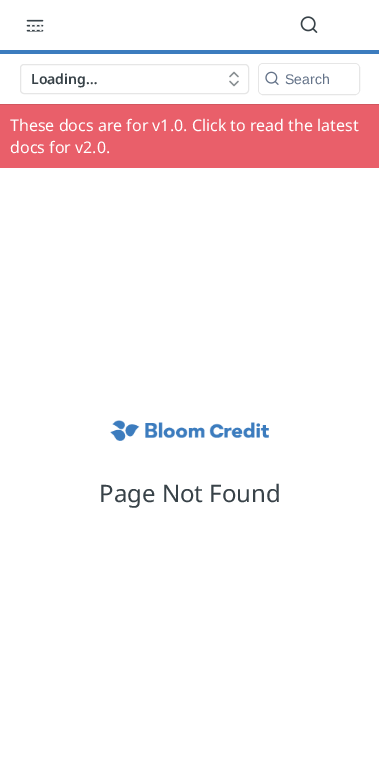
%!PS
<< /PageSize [379 766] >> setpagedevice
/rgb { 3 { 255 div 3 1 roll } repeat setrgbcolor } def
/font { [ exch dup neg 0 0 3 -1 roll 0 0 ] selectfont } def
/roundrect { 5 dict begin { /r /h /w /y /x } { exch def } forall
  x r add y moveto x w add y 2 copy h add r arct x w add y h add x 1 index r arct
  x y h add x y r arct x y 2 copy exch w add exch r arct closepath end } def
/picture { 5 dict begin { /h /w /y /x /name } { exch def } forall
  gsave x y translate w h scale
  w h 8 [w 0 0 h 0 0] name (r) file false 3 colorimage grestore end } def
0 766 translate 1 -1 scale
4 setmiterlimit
255 255 255 rgb
0 0 379 766 rectfill
210 86 95 rgb
0 104 379 1 rectfill
60 124 190 rgb
0 50 379 4 rectfill
(img/1.rgb) 26 19 18 13 picture
(img/2.rgb) 300 16 18 17 picture
230 230 230 rgb
20.5 64.5 228 29 3.5 roundrect stroke
136 142 145 rgb
1.3 setlinewidth
1 setlinecap
1 setlinejoin
230 81.5 moveto 234 85.5 lineto 238 81.5 lineto 238 76.5 moveto 234 72.5 lineto 230 76.5 lineto stroke
230 230 230 rgb
1 setlinewidth
0 setlinecap
0 setlinejoin
258.5 63.5 101 31 4.5 roundrect stroke
255 255 255 rgb
259 64 100 30 4 roundrect fill
(img/3.rgb) 265 71 14 14 picture
233 95 106 rgb
0 105 379 63 rectfill
(img/4.rgb) 110 420 159 21 picture
/NotoSans-SemiBold 14 font
246 246 246 rgb
29 31 moveto (m) show
56 66 72 rgb
31 84 moveto (Loading…) show
/LiberationSans-Regular 14 font
99 114 136 rgb
285 84 moveto (Search) show
/NotoSans-Regular 16 font
255 255 255 rgb
10 131 moveto (These docs are for v1.0. Click to read the latest) show
10 153 moveto (docs for v2.0.) show
/NotoSans-Regular 24 font
56 66 72 rgb
99 502 moveto (Page Not Found) show
showpage
